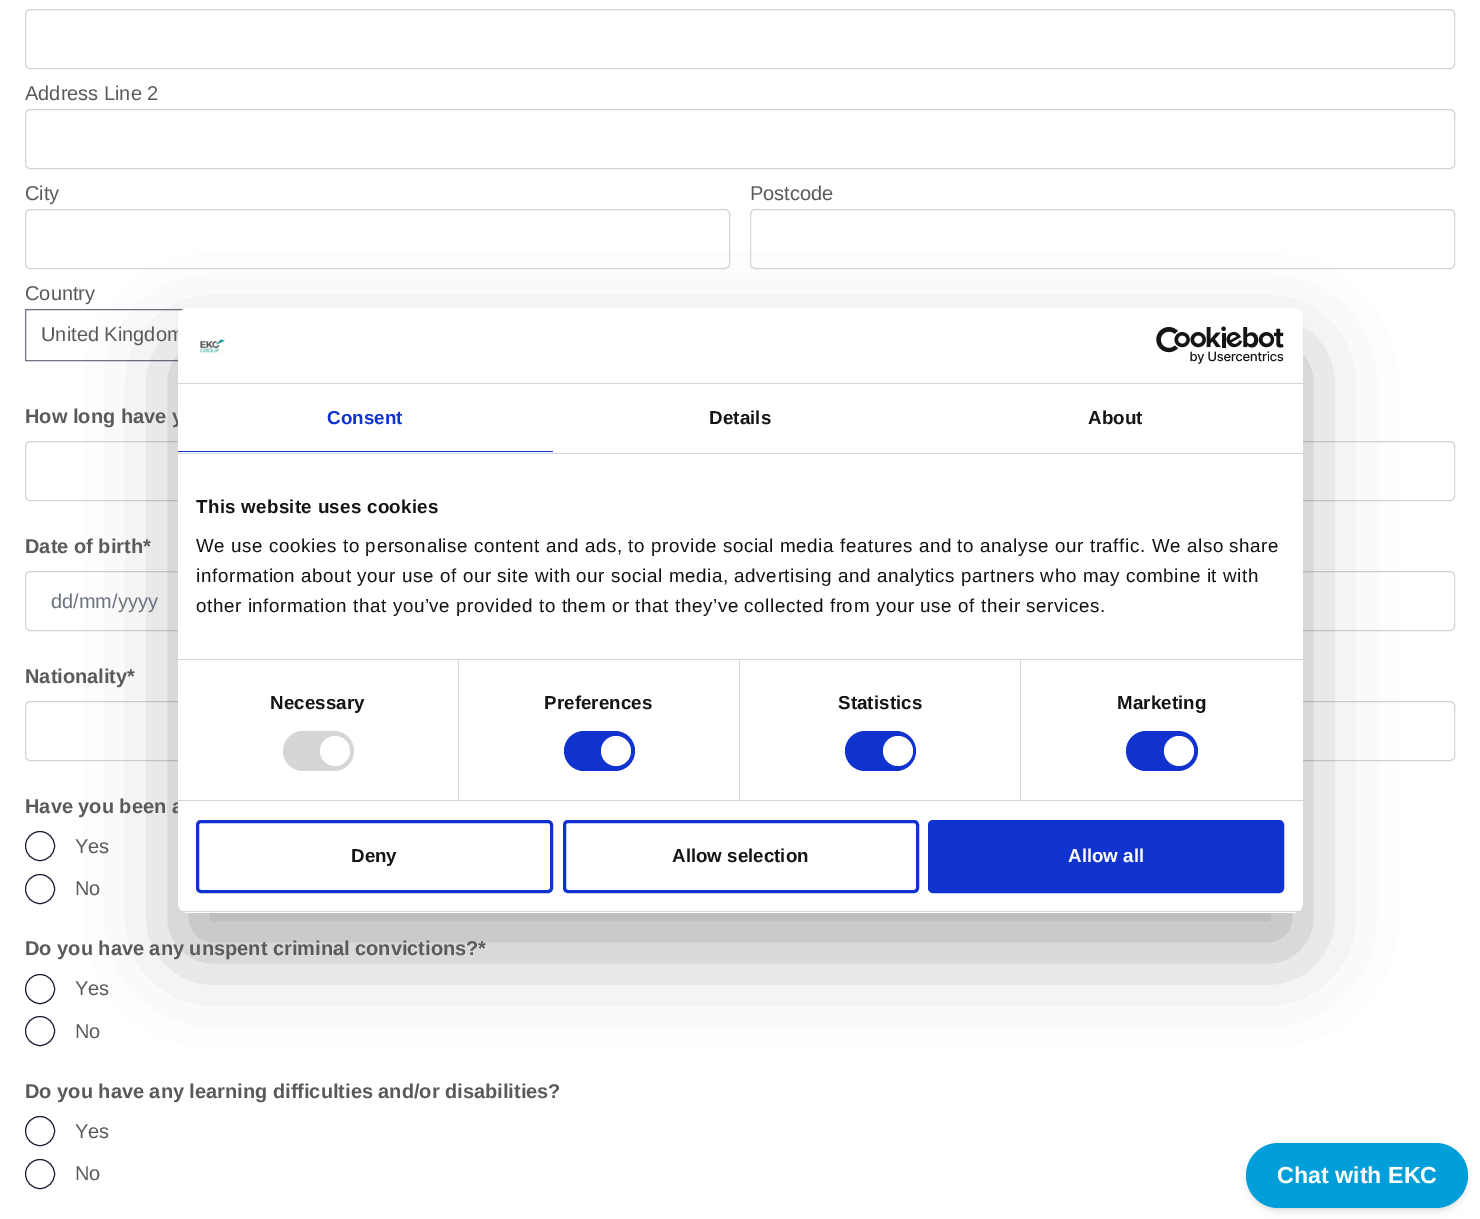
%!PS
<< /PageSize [1480 1219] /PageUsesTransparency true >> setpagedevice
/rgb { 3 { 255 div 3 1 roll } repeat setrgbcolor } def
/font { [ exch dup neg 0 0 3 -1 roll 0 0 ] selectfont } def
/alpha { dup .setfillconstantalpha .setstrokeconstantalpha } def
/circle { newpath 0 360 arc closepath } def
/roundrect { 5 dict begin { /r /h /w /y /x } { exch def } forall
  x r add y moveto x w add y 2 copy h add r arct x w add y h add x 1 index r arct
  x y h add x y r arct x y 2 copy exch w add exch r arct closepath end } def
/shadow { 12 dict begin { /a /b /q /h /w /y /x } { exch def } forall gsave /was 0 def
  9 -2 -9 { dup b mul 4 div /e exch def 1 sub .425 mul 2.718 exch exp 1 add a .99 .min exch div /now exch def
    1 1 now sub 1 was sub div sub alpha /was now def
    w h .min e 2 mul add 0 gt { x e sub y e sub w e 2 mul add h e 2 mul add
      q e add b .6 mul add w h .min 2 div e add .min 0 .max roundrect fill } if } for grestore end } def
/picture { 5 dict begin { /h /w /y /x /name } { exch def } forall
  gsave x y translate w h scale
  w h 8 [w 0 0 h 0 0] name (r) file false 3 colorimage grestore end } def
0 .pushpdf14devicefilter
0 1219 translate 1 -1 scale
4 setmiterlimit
255 255 255 rgb
0 0 1480 1219 rectfill
209 213 219 rgb
25.5 9.5 1429 59 4.5 roundrect stroke
25.5 109.5 1429 59 4.5 roundrect stroke
25.5 209.5 704 59 4.5 roundrect stroke
750.5 209.5 704 59 4.5 roundrect stroke
107 114 128 rgb
25.5 309.5 704 51 rectstroke
209 213 219 rgb
25.5 441.5 1429 59 4.5 roundrect stroke
25.5 571.5 702 59 4.5 roundrect stroke
753.5 571.5 701 59 4.5 roundrect stroke
25.5 701.5 702 59 4.5 roundrect stroke
753.5 701.5 701 59 4.5 roundrect stroke
30 25 52 rgb
40 846 14.5 circle stroke
40 889 14.5 circle stroke
40 989 14.5 circle stroke
40 1031 14.5 circle stroke
40 1131 14.5 circle stroke
40 1174 14.5 circle stroke
0 0 0 rgb
1249 1148 216 60 30 2.5 0.1 shadow
1248 1149 218 62 31 4 0.1 shadow
0 159 218 rgb
1246 1143 222 65 32.5 roundrect fill
0 0 0 rgb
178 348 1125 605 10 42.5 0.3 shadow
/LiberationSans-Regular 20 font
90 90 90 rgb
[
  [(Address Line 2) 25 100]
  [(City) 25 200]
  [(Postcode) 750 200]
  [(Country) 25 300]
  [(United Kingdom) 41 341]
] { aload pop moveto show } forall
/LiberationSans-Bold 20 font
25 423 moveto (How long have y) show
25 553 moveto (Date of birth*) show
/LiberationSans-Regular 20 font
107 114 128 rgb
51 608 moveto (dd/mm/yyyy) show
/LiberationSans-Bold 20 font
90 90 90 rgb
25 683 moveto (Nationality*) show
25 813 moveto (Have you been a) show
/LiberationSans-Regular 20 font
75 853 moveto (Yes) show
75 895 moveto (No) show
/LiberationSans-Bold 20 font
25 955 moveto (Do you have any unspent criminal convictions?*) show
/LiberationSans-Regular 20 font
75 995 moveto (Yes) show
75 1038 moveto (No) show
/LiberationSans-Bold 20 font
25 1098 moveto (Do you have any learning difficulties and/or disabilities?) show
/LiberationSans-Regular 20 font
75 1138 moveto (Yes) show
75 1180 moveto (No) show
/LiberationSans-Bold 23.25 font
255 255 255 rgb
1277 1183 moveto (Chat with EKC) show
178 308 1125 605 10 roundrect fill
214 214 214 rgb
178 383 1125 1 rectfill
(img/1.rgb) 196 335 29 19 picture
(img/2.rgb) 1156 326 128 38 picture
178 453 1125 1 rectfill
16 50 207 rgb
178 451 375 1 rectfill
/LiberationSans-Bold 18.75 font
327 424 moveto 0.1 0 (Consent) ashow
20 20 20 rgb
709 424 moveto 0.1 0 (Details) ashow
1088 424 moveto 0.1 0 (About) ashow
214 214 214 rgb
178 659 1125 1 rectfill
20 20 20 rgb
196 513 moveto 0.3 0 (This website uses cookies) ashow
/LiberationSans-Regular 18.75 font
196 552 moveto 0.62 0 (We use cookies to personalise content and ads, to provide social media features and to analyse our traffic. We also share) ashow
196 582 moveto 0.62 0 (information about your use of our site with our social media, advertising and analytics partners who may combine it with) ashow
196 612 moveto 0.62 0 (other information that you’ve provided to them or that they’ve collected from your use of their services.) ashow
214 214 214 rgb
178 800 1125 1 rectfill
458 660 1 140 rectfill
/LiberationSans-Bold 18.75 font
20 20 20 rgb
270 709 moveto 0.1 0 (Necessary) ashow
214 214 214 rgb
283 731 71 40 20 roundrect fill
255 255 255 rgb
335 751 15 circle fill
214 214 214 rgb
739 660 1 140 rectfill
20 20 20 rgb
544 709 moveto 0.1 0 (Preferences) ashow
16 50 207 rgb
564 731 71 40 20 roundrect fill
255 255 255 rgb
616 751 15 circle fill
214 214 214 rgb
1020 660 1 140 rectfill
20 20 20 rgb
838 709 moveto 0.1 0 (Statistics) ashow
16 50 207 rgb
845 731 71 40 20 roundrect fill
255 255 255 rgb
898 751 15 circle fill
20 20 20 rgb
1117 709 moveto 0.1 0 (Marketing) ashow
16 50 207 rgb
1126 731 72 40 20 roundrect fill
255 255 255 rgb
1179 751 15 circle fill
gsave
178 308 1125 605 10 roundrect clip newpath
214 214 214 rgb
178 911 1125 1 rectfill
grestore
16 50 207 rgb
3 setlinewidth
197.5 821.5 354 70 3.5 roundrect stroke
20 20 20 rgb
351 862 moveto (Deny) show
16 50 207 rgb
564.5 821.5 353 70 3.5 roundrect stroke
20 20 20 rgb
672 862 moveto (Allow selection) show
16 50 207 rgb
929.5 821.5 353 70 3.5 roundrect gsave fill grestore
stroke
255 255 255 rgb
1068 862 moveto (Allow all) show
.poppdf14devicefilter showpage
